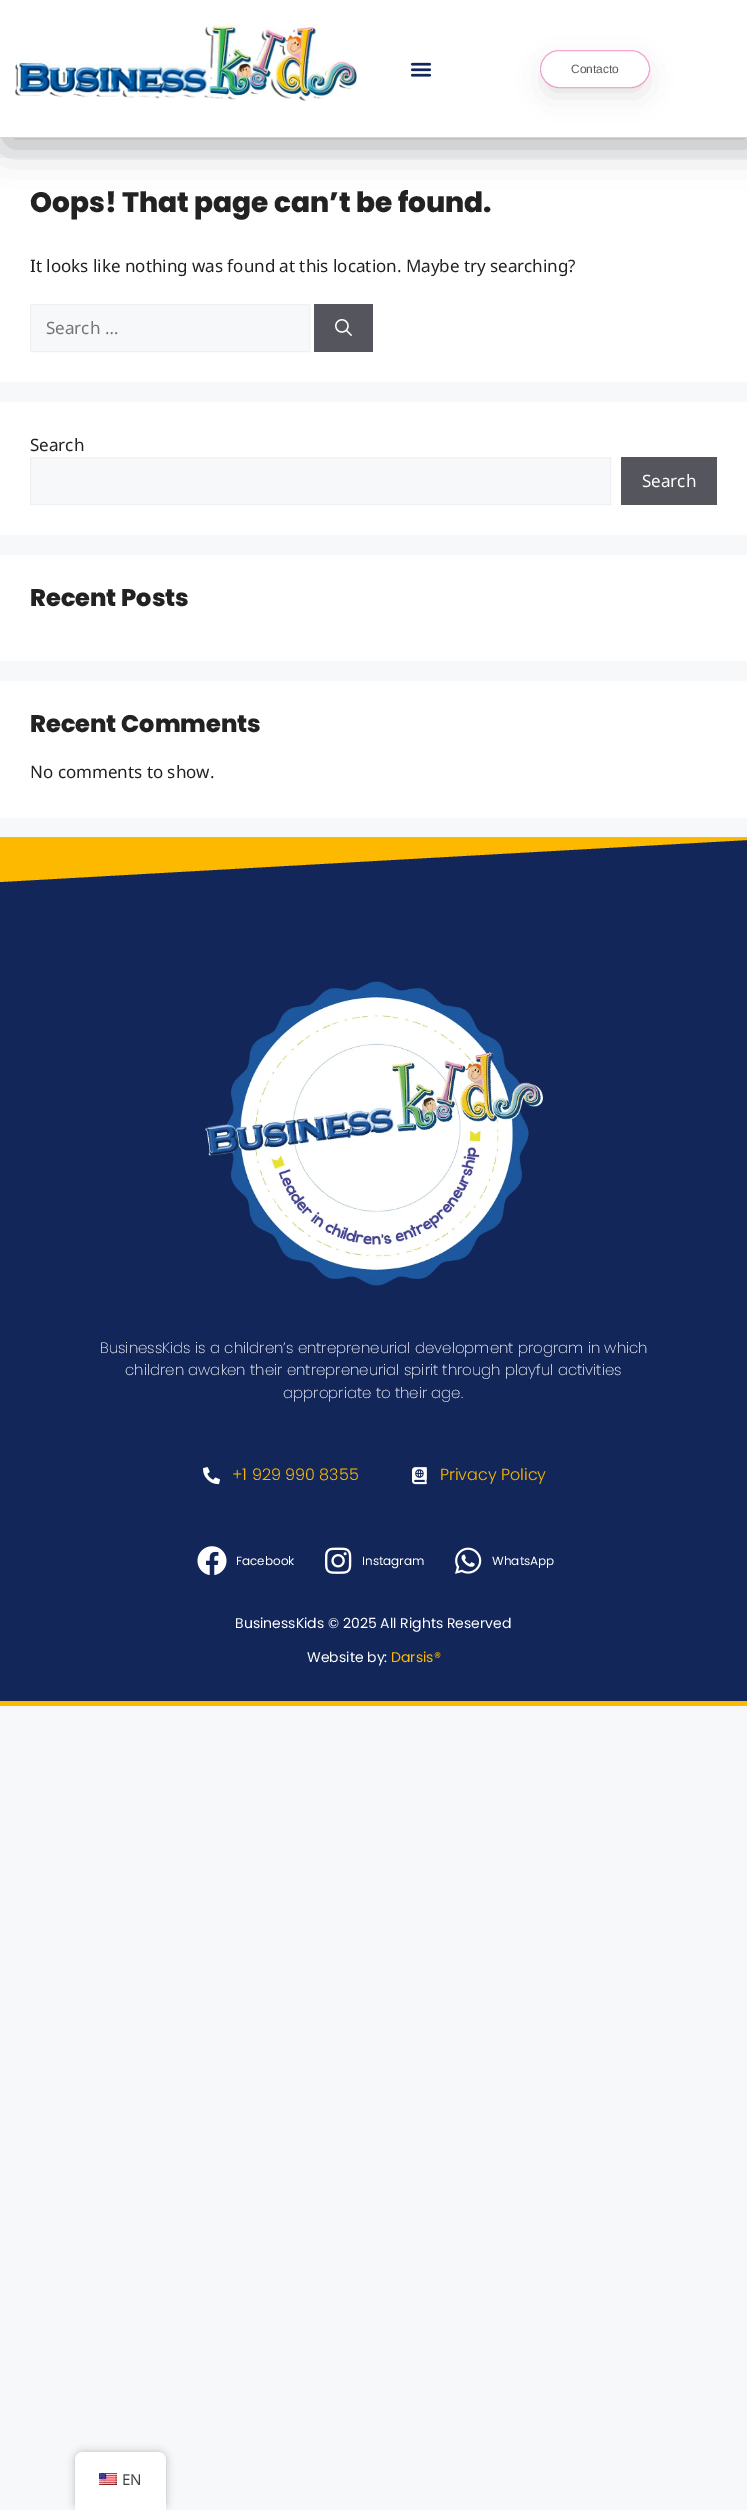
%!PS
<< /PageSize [747 2510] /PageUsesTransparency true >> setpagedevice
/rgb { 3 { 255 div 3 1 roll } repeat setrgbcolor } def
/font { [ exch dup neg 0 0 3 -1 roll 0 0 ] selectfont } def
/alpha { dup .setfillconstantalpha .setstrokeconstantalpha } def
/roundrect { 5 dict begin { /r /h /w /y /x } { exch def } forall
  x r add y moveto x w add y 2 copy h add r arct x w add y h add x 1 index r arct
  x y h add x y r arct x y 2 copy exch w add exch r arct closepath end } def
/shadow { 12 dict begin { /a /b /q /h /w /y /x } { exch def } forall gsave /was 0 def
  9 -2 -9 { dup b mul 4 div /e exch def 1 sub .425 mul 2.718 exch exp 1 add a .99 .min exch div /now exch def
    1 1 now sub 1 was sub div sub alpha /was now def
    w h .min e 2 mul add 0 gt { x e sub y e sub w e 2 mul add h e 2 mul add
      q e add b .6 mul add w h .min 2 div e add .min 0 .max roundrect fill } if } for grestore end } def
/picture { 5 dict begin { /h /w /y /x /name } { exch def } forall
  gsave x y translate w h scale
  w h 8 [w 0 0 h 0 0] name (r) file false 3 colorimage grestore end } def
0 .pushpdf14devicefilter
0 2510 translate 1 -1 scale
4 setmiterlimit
247 248 249 rgb
0 0 747 2510 rectfill
255 255 255 rgb
0 158 747 224 rectfill
0 0 0 rgb
6 7 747 138 0 20 0.3 shadow
255 255 255 rgb
0 0 747 137 rectfill
214 214 214 rgb
0 137 747 1 rectfill
(img/1.rgb) 15 22 347 79 picture
(img/2.rgb) 410 62 22 15 picture
gsave
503 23 moveto 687 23 lineto 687 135 lineto 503 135 lineto closepath 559 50 moveto 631 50 lineto 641.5 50 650 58.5 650 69 curveto 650 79.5 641.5 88 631 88 curveto 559 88 lineto 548.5 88 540 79.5 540 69 curveto 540 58.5 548.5 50 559 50 curveto closepath eoclip newpath
0 0 0 rgb
549 69 92 20 10 15 0.16 shadow
grestore
0.34 alpha
228 0 128 rgb
540.5 50.5 109 37 18.5 roundrect stroke
1 alpha
247 248 249 rgb
30.5 304.5 moveto 309.5 304.5 lineto 309.5 351.5 lineto 30.5 351.5 lineto closepath gsave fill grestore
240 240 240 rgb
stroke
85 85 94 rgb
314 304 59 48 rectfill
(img/3.rgb) 335 319 17 17 picture
255 255 255 rgb
0 402 747 133 rectfill
247 248 249 rgb
30.5 457.5 moveto 610.5 457.5 lineto 610.5 504.5 lineto 30.5 504.5 lineto closepath gsave fill grestore
240 240 240 rgb
stroke
[
  [621 457 96 48 85 85 94]
  [0 555 747 106 255 255 255]
  [0 681 747 137 255 255 255]
  [0 840 747 861 18 38 89]
  [0 1701 747 5 252 185 0]
] { aload pop rgb rectfill } forall
747 840 moveto 747 837 lineto -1 837 lineto -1 882 lineto closepath fill
(img/4.rgb) 205 981 338 305 picture
(img/5.rgb) 203 1467 17 18 picture
(img/6.rgb) 412 1467 15 18 picture
(img/7.rgb) 197 1546 30 30 picture
(img/8.rgb) 325 1547 27 27 picture
(img/9.rgb) 455 1547 27 27 picture
0 0 0 rgb
75 2452 91 58 8 4 0.25 shadow
255 255 255 rgb
83 2452 moveto 158 2452 lineto 162.5 2452 166 2455.5 166 2460 curveto 166 2510 lineto 75 2510 lineto 75 2460 lineto 75 2455.5 78.5 2452 83 2452 curveto closepath fill
(img/10.rgb) 99 2473 18 12 picture
/LiberationSans-Regular 12 font
91 91 91 rgb
571 73 moveto (Contacto) show
/Poppins-ExtraBold 28 font
34 34 34 rgb
30 212 moveto (Oops! That page can’t be found.) show
/NotoSans-Regular 17 font
30 272 moveto (It looks like nothing was found at this location. Maybe try searching?) show
117 117 117 rgb
46 334 moveto (Search …) show
34 34 34 rgb
30 451 moveto (Search) show
255 255 255 rgb
642 487 moveto (Search) show
/Poppins-ExtraBold 24 font
34 34 34 rgb
30 606 moveto (Recent Posts) show
30 732 moveto (Recent Comments) show
/NotoSans-Regular 17 font
30 778 moveto (No comments to show.) show
/Poppins-ExtraLight 15 font
255 255 255 rgb
[
  [(BusinessKids is a children’s entrepreneurial development program in which) 100 1353]
  [(children awaken their entrepreneurial spirit through playful activities) 125 1375]
  [(appropriate to their age.) 283 1398]
] { aload pop moveto show } forall
/Poppins-Light 16 font
252 185 0 rgb
232 1480 moveto (+1 929 990 8355) show
440 1480 moveto (Privacy Policy) show
/Poppins-Regular 12 font
255 255 255 rgb
[
  [(Facebook) 236 1565]
  [(Instagram) 362 1565]
  [(WhatsApp) 492 1565]
] { aload pop moveto show } forall
/Poppins-Regular 14 font
235 1628 moveto (BusinessKids © 2025 All Rights Reserved) show
307 1662 moveto (Website by:) show
252 185 0 rgb
391 1662 moveto (Darsis®) show
/NotoSans-Regular 15 font
64 64 64 rgb
122 2485 moveto (EN) show
.poppdf14devicefilter showpage
